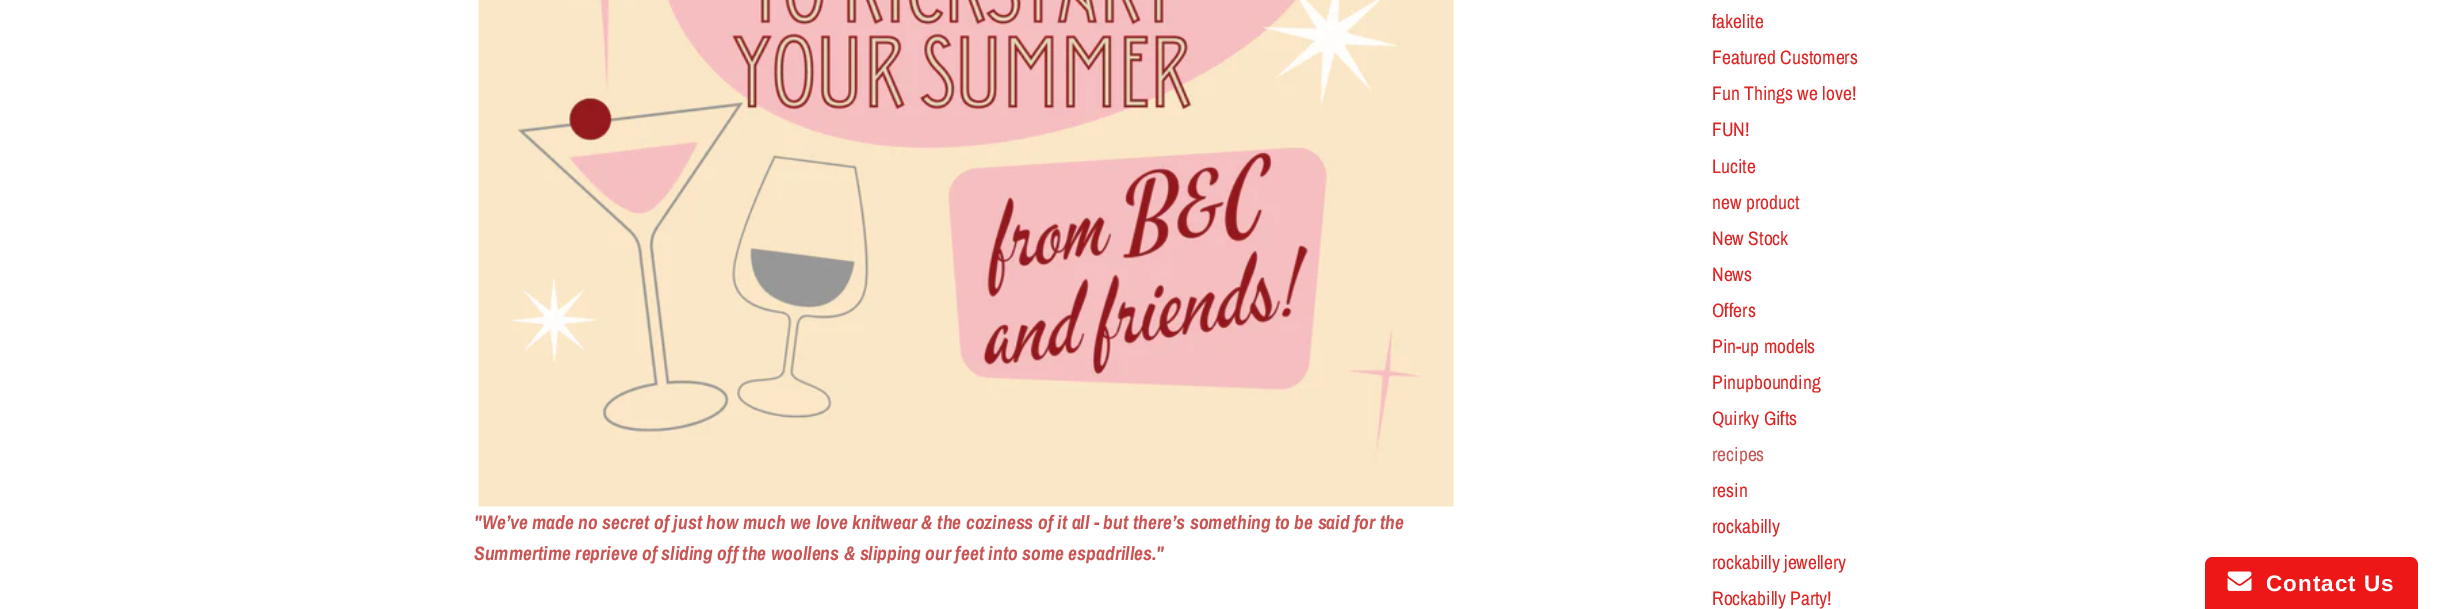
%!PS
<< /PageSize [2447 609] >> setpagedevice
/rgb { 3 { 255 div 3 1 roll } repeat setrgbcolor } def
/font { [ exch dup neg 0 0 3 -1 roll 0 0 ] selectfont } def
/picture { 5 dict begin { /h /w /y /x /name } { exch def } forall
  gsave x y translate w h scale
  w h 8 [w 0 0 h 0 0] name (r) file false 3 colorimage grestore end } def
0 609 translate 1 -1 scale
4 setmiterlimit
255 255 255 rgb
0 0 2447 609 rectfill
(img/1.rgb) 478 0 976 507 picture
237 23 23 rgb
2213 557 moveto 2410 557 lineto 2414.5 557 2418 560.5 2418 565 curveto 2418 609 lineto 2205 609 lineto 2205 565 lineto 2205 560.5 2208.5 557 2213 557 curveto closepath fill
(img/2.rgb) 2227 571 25 20 picture
/ArchivoNarrow-BoldItalic 19.5 font
202 84 84 rgb
474 529 moveto ("We’ve made no secret of just how much we love knitwear & the coziness of it all - but there’s something to be said for the) show
474 560 moveto (Summertime reprieve of sliding off the woollens & slipping our feet into some espadrilles.") show
/ArchivoNarrow-Regular 19.5 font
221 37 37 rgb
[
  [(fakelite) 1712 28]
  [(Featured Customers) 1712 64]
  [(Fun Things we love!) 1712 100]
  [(FUN!) 1712 136]
  [(Lucite) 1712 173]
  [(new product) 1712 209]
  [(New Stock) 1712 245]
  [(News) 1712 281]
  [(Offers) 1712 317]
  [(Pin-up models) 1712 353]
  [(Pinupbounding) 1712 389]
  [(Quirky Gifts) 1712 425]
] { aload pop moveto show } forall
202 84 84 rgb
1712 461 moveto (recipes) show
221 37 37 rgb
[
  [(resin) 1712 497]
  [(rockabilly) 1712 533]
  [(rockabilly jewellery) 1712 569]
  [(Rockabilly Party!) 1712 605]
] { aload pop moveto show } forall
/LiberationSans-Bold 22.5 font
255 255 255 rgb
2266 591 moveto 1 0 (Contact Us) ashow
showpage
